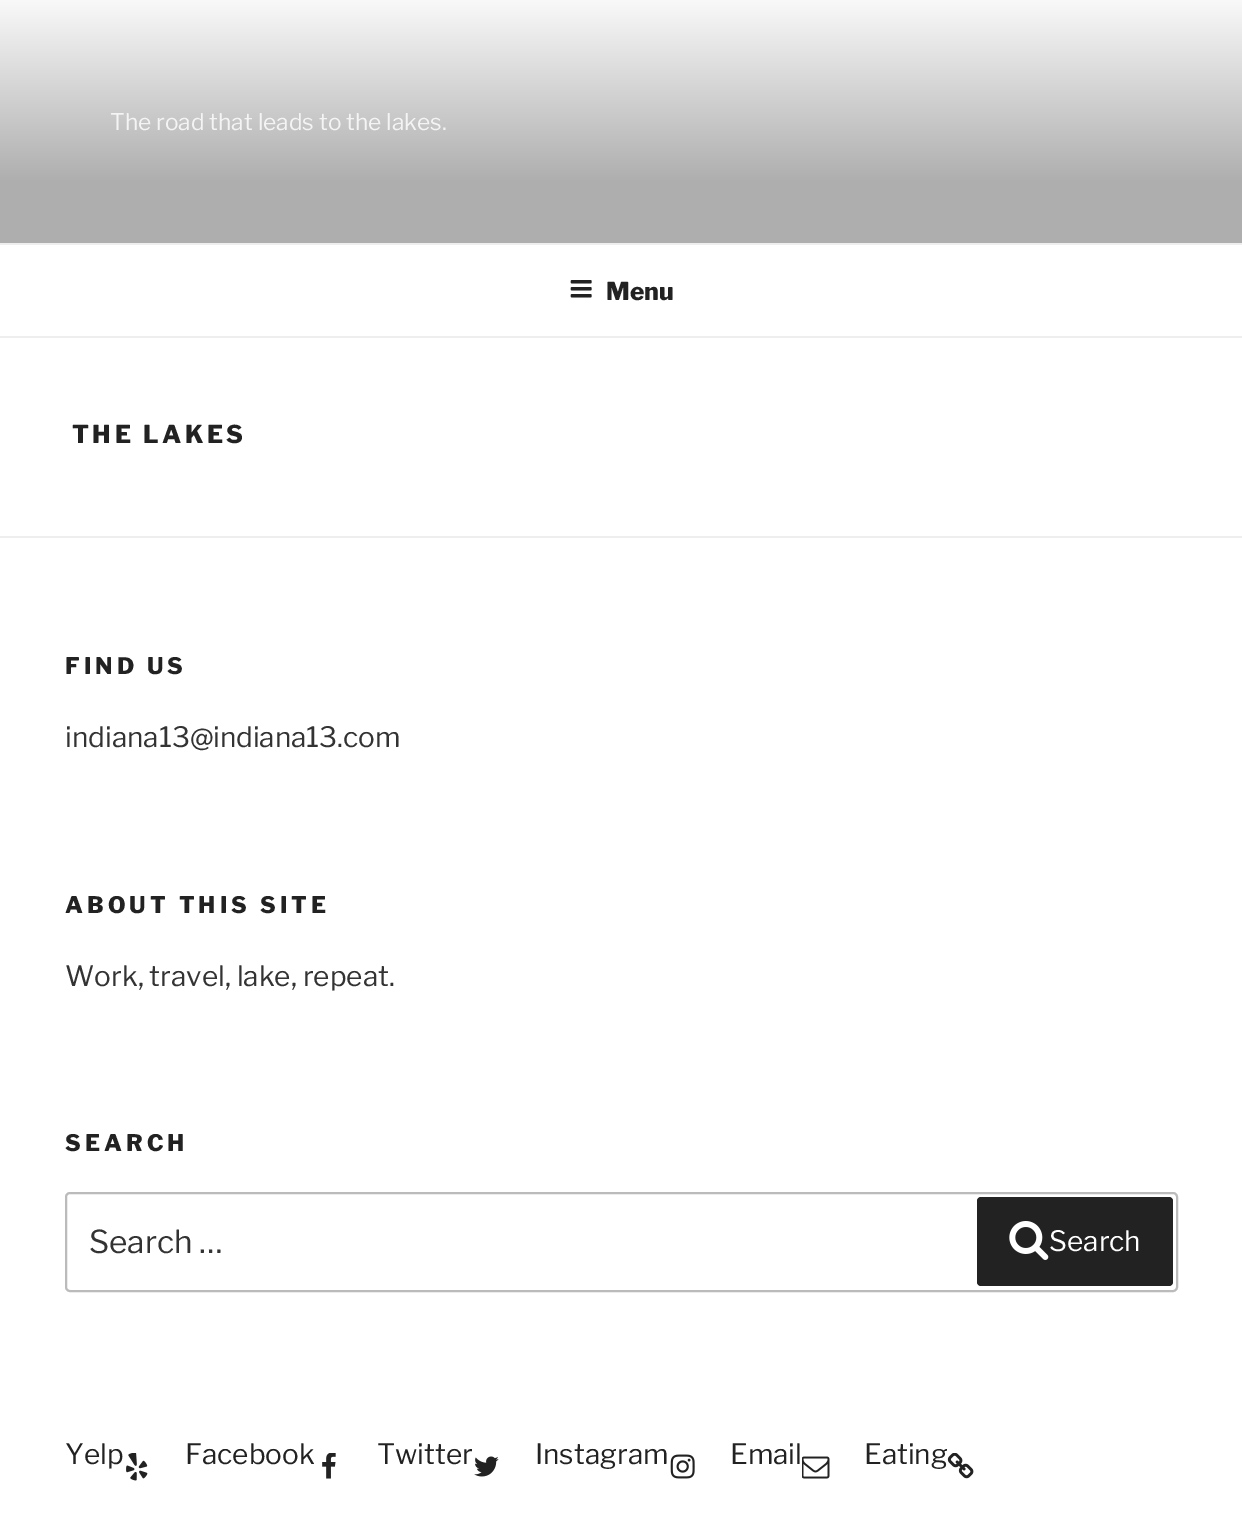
%!PS
<< /PageSize [1242 1540] >> setpagedevice
/rgb { 3 { 255 div 3 1 roll } repeat setrgbcolor } def
/font { [ exch dup neg 0 0 3 -1 roll 0 0 ] selectfont } def
/roundrect { 5 dict begin { /r /h /w /y /x } { exch def } forall
  x r add y moveto x w add y 2 copy h add r arct x w add y h add x 1 index r arct
  x y h add x y r arct x y 2 copy exch w add exch r arct closepath end } def
/picture { 5 dict begin { /h /w /y /x /name } { exch def } forall
  gsave x y translate w h scale
  w h 8 [w 0 0 h 0 0] name (r) file false 3 colorimage grestore end } def
0 1540 translate 1 -1 scale
4 setmiterlimit
255 255 255 rgb
0 0 1242 1540 rectfill
gsave 0 0 moveto 1242 0 lineto 1242 243 lineto 0 243 lineto closepath clip newpath
<< /ShadingType 2 /ColorSpace /DeviceRGB /Coords [621 0 621 243] /Extend [true true] /Function << /FunctionType 3 /Domain [0 1] /Functions [<< /FunctionType 2 /Domain [0 1] /C0 [0.976 0.976 0.976] /C1 [0.682 0.682 0.682] /N 1 >> << /FunctionType 2 /Domain [0 1] /C0 [0.682 0.682 0.682] /C1 [0.682 0.682 0.682] /N 1 >>] /Bounds [0.75] /Encode [0 1 0 1] >> >> shfill grestore
238 238 238 rgb
0 243 1242 2 rectfill
0 336 1242 2 rectfill
(img/1.rgb) 570 280 22 18 picture
0 536 1242 2 rectfill
187 187 187 rgb
2 setlinewidth
66 1193 1111 98 4 roundrect stroke
34 34 34 rgb
977 1197 196 89 4 roundrect fill
(img/2.rgb) 1009 1221 40 39 picture
(img/3.rgb) 126 1453 22 28 picture
(img/4.rgb) 322 1453 14 26 picture
(img/5.rgb) 474 1456 25 21 picture
(img/6.rgb) 670 1454 25 25 picture
(img/7.rgb) 802 1456 28 23 picture
(img/8.rgb) 947 1453 27 26 picture
/LibreFranklin-Regular 22.75 font
244 244 244 rgb
110 130 moveto (The road that leads to the lakes.) show
/LibreFranklin-ExtraBold 24.5 font
34 34 34 rgb
606 300 moveto (Menu) show
72 443 moveto 3.5 0 (THE LAKES) ashow
/LibreFranklin-ExtraBold 22.75 font
65 674 moveto 4.1 0 (FIND US) ashow
/LibreFranklin-Regular 28 font
51 51 51 rgb
65 747 moveto (indiana13@indiana13.com) show
/LibreFranklin-ExtraBold 22.75 font
34 34 34 rgb
65 913 moveto 4.1 0 (ABOUT THIS SITE) ashow
/LibreFranklin-Regular 28 font
51 51 51 rgb
65 986 moveto (Work, travel, lake, repeat.) show
/LibreFranklin-ExtraBold 22.75 font
34 34 34 rgb
65 1151 moveto 4.1 0 (SEARCH) ashow
/LibreFranklin-Regular 31.5 font
51 51 51 rgb
89 1253 moveto (Search …) show
/LibreFranklin-Regular 28 font
255 255 255 rgb
1049 1251 moveto (Search) show
34 34 34 rgb
[
  [(Yelp) 65 1464]
  [(Facebook) 185 1464]
  [(Twitter) 377 1464]
  [(Instagram) 535 1464]
  [(Email) 730 1464]
  [(Eating) 864 1464]
] { aload pop moveto show } forall
showpage
